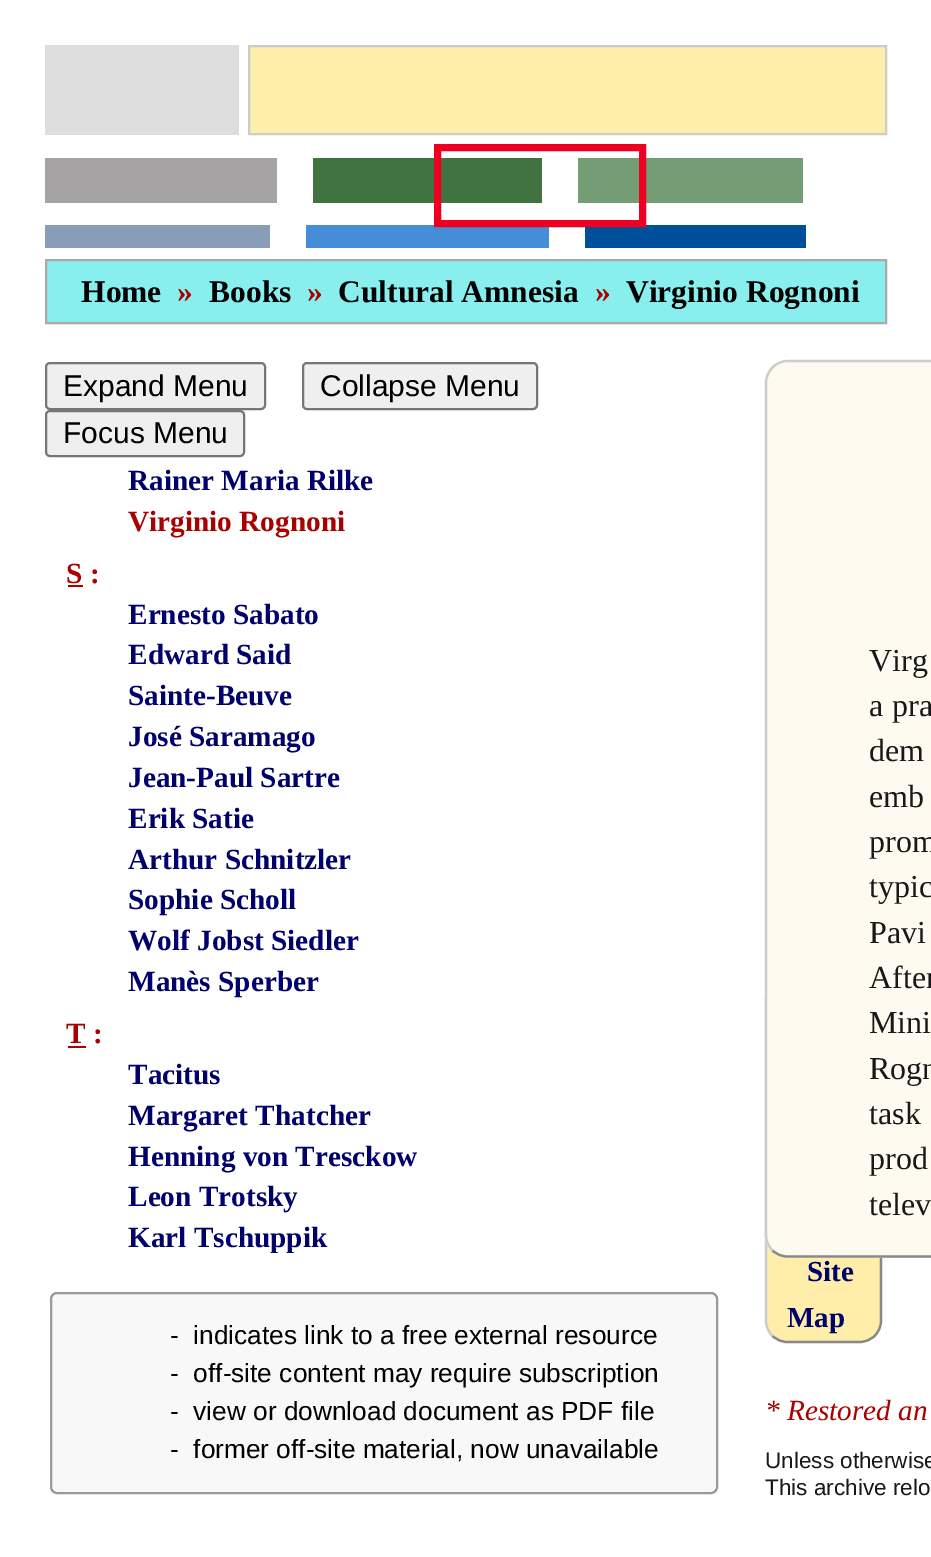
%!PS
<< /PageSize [931 1557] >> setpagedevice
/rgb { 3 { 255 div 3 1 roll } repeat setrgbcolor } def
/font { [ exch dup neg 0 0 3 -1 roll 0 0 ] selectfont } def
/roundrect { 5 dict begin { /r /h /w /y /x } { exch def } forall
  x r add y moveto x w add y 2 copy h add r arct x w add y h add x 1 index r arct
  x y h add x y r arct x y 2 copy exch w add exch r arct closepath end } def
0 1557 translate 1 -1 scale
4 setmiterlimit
255 255 255 rgb
0 0 931 1557 rectfill
221 221 221 rgb
45 45 194 90 rectfill
255 238 170 rgb
249 46 moveto 886 46 lineto 886 134 lineto 249 134 lineto closepath gsave fill grestore
204 204 204 rgb
2 setlinewidth
stroke
[
  [313 158 229 45 65 115 64]
  [578 158 225 45 116 157 117]
  [306 225 243 23 70 141 216]
  [585 225 221 23 0 79 156]
] { aload pop rgb rectfill } forall
238 0 34 rgb
7 setlinewidth
437.5 147.5 205 76 rectstroke
165 163 164 rgb
45 158 232 45 rectfill
138 157 184 rgb
45 225 225 23 rectfill
136 238 238 rgb
46 260 moveto 886 260 lineto 886 323 lineto 46 323 lineto closepath gsave fill grestore
170 170 170 rgb
2 setlinewidth
stroke
239 239 239 rgb
46 363 219 46 4 roundrect gsave fill grestore
118 118 118 rgb
stroke
239 239 239 rgb
303 363 234 46 4 roundrect gsave fill grestore
118 118 118 rgb
stroke
239 239 239 rgb
46 411 198 45 4 roundrect gsave fill grestore
118 118 118 rgb
stroke
170 0 0 rgb
68 585 15 2 rectfill
68 1046 18 2 rectfill
248 248 248 rgb
51 1293 666 200 6 roundrect gsave fill grestore
153 153 153 rgb
stroke
255 238 170 rgb
765 974 117 369 23 roundrect fill
136 136 136 rgb
2.2 setlinewidth
874.5 981.5 moveto 878.5 985.5 881 991 881 997 curveto 881 1321 lineto 881 1326.5 878.5 1332 874.5 1336 curveto 870.5 1340 865 1342 859.5 1342 curveto 787.5 1342 lineto 782 1342 776.5 1340 772.5 1336 curveto stroke
204 204 204 rgb
772.5 1336 moveto 768.5 1332 766 1326.5 766 1321 curveto 766 997 lineto 766 991 768.5 985.5 772.5 981.5 curveto 776.5 977.5 782 975.5 787.5 975.5 curveto 859.5 975.5 lineto 865 975.5 870.5 977.5 874.5 981.5 curveto stroke
255 250 240 rgb
765 360 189 898 23 roundrect fill
136 136 136 rgb
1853.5 367.5 moveto 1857.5 371.5 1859.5 377 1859.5 382.5 curveto 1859.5 1235 lineto 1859.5 1241 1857.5 1246.5 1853.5 1250.5 curveto 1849.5 1254.5 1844 1256.5 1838 1256.5 curveto 787.5 1256.5 lineto 782 1256.5 776.5 1254.5 772.5 1250.5 curveto stroke
204 204 204 rgb
772.5 1250.5 moveto 768.5 1246.5 766 1241 766 1235 curveto 766 382.5 lineto 766 377 768.5 371.5 772.5 367.5 curveto 776.5 363.5 782 361 787.5 361 curveto 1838 361 lineto 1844 361 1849.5 363.5 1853.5 367.5 curveto stroke
/LiberationSerif-Bold 31.5 font
0 0 0 rgb
81 302 moveto (Home) show
170 0 0 rgb
177 302 moveto (») show
0 0 0 rgb
209 302 moveto (Books) show
170 0 0 rgb
307 302 moveto (») show
0 0 0 rgb
338 302 moveto (Cultural Amnesia) show
170 0 0 rgb
595 302 moveto (») show
0 0 0 rgb
626 302 moveto (Virginio Rognoni) show
/LiberationSans-Regular 30 font
[
  [(Expand Menu) 63 396]
  [(Collapse Menu) 320 396]
  [(Focus Menu) 63 443]
] { aload pop moveto show } forall
/LiberationSerif-Bold 29.25 font
0 0 108 rgb
128 490 moveto (Rainer Maria Rilke) show
170 0 0 rgb
128 531 moveto (Virginio Rognoni) show
66 583 moveto (S :) show
0 0 108 rgb
[
  [(Ernesto Sabato) 128 624]
  [(Edward Said) 128 664]
  [(Sainte-Beuve) 128 705]
  [(José Saramago) 128 746]
  [(Jean-Paul Sartre) 128 787]
  [(Erik Satie) 128 828]
  [(Arthur Schnitzler) 128 869]
  [(Sophie Scholl) 128 909]
  [(Wolf Jobst Siedler) 128 950]
  [(Manès Sperber) 128 991]
] { aload pop moveto show } forall
170 0 0 rgb
66 1043 moveto (T :) show
0 0 108 rgb
[
  [(Tacitus) 128 1084]
  [(Margaret Thatcher) 128 1125]
  [(Henning von Tresckow) 128 1166]
  [(Leon Trotsky) 128 1206]
] { aload pop moveto show } forall
gsave
45 439 675 814 rectclip
128 1247 moveto (Karl Tschuppik) show
grestore
/LiberationSans-Regular 26.25 font
0 0 0 rgb
[
  [(-  indicates link to a free external resource) 170 1344]
  [(-  off-site content may require subscription) 170 1382]
  [(-  view or download document as PDF file) 170 1420]
  [(-  former off-site material, now unavailable) 170 1458]
] { aload pop moveto show } forall
/LiberationSerif-Regular 32 font
24 24 24 rgb
869 671 moveto 1 0 32 (Virg) widthshow
869 716 moveto 1 0 32 (a pra) widthshow
869 761 moveto 10 0 32 (dem) widthshow
869 807 moveto 8 0 32 (emb) widthshow
869 852 moveto 7 0 32 (prom) widthshow
869 897 moveto 4 0 32 (typic) widthshow
869 943 moveto 1 0 32 (Pavi) widthshow
869 988 moveto 16 0 32 (After) widthshow
869 1033 moveto 4 0 32 (Mini) widthshow
869 1079 moveto 3 0 32 (Rogn) widthshow
869 1124 moveto 3 0 32 (task) widthshow
869 1169 moveto 9 0 32 (prod) widthshow
869 1215 moveto 2 0 32 (telev) widthshow
/LiberationSerif-Bold 29 font
0 0 108 rgb
807 1281 moveto (Site) show
787 1327 moveto (Map) show
/LiberationSerif-Italic 29.25 font
170 0 0 rgb
765 1420 moveto (* Restored an) show
/LiberationSans-Regular 22.5 font
24 24 24 rgb
765 1468 moveto (Unless otherwise) show
765 1495 moveto (This archive relo) show
showpage
